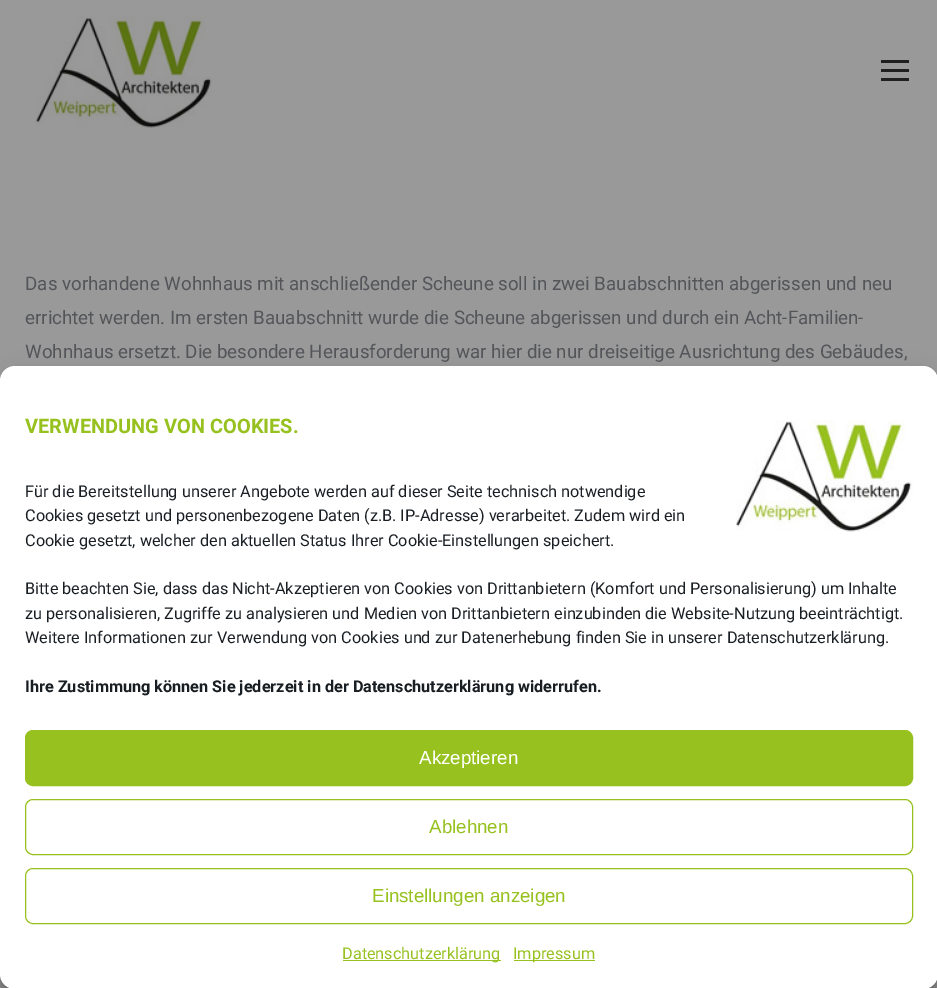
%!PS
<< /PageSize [937 988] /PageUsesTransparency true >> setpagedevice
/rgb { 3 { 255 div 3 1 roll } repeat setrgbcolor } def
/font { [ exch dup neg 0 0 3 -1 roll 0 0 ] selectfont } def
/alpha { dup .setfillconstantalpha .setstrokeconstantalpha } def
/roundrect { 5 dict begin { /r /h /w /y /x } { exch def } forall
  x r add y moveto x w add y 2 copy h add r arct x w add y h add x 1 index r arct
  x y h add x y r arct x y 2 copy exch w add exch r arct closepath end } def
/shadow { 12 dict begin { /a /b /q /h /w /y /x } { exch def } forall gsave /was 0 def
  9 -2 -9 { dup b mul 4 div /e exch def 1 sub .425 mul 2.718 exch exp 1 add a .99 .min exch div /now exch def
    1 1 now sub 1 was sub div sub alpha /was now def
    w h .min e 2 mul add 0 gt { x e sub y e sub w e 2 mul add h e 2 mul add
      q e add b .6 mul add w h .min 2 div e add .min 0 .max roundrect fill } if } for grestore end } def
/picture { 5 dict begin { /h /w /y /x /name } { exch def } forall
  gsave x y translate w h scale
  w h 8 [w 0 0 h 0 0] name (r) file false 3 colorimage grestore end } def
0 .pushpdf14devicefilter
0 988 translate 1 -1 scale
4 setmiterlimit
153 153 153 rgb
0 0 937 988 rectfill
(img/1.rgb) 36 16 176 112 picture
[
  [881 60 28 3 31 31 31]
  [881 69 28 3 31 31 31]
  [881 78 28 3 31 31 31]
] { aload pop rgb rectfill } forall
0 0 0 rgb
0 374 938 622 15 4 0.23 shadow
0 379 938 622 15 12.5 0.19 shadow
255 255 255 rgb
0 366 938 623 15 roundrect fill
(img/2.rgb) 736 420 177 112 picture
151 193 31 rgb
25.5 730.5 887 55 7.5 roundrect gsave fill grestore
stroke
25.5 799.5 887 55 7.5 roundrect stroke
25.5 868.5 887 55 7.5 roundrect stroke
343 960 158 1 rectfill
514 960 81 1 rectfill
/Roboto-Regular 18.75 font
83 85 89 rgb
[
  [(Das vorhandene Wohnhaus mit anschließender Scheune soll in zwei Bauabschnitten abgerissen und neu) 25 290]
  [(errichtet werden. Im ersten Bauabschnitt wurde die Scheune abgerissen und durch ein Acht-Familien-) 25 324]
  [(Wohnhaus ersetzt. Die besondere Herausforderung war hier die nur dreiseitige Ausrichtung des Gebäudes,) 25 358]
] { aload pop moveto show } forall
/Roboto-Bold 20 font
151 193 31 rgb
25 433 moveto (VERWENDUNG VON COOKIES.) show
/Roboto-Regular 16.25 font
25 30 35 rgb
[
  [(Für die Bereitstellung unserer Angebote werden auf dieser Seite technisch notwendige) 25 497]
  [(Cookies gesetzt und personenbezogene Daten \(z.B. IP-Adresse\) verarbeitet. Zudem wird ein) 25 521]
  [(Cookie gesetzt, welcher den aktuellen Status Ihrer Cookie-Einstellungen speichert.) 25 546]
  [(Bitte beachten Sie, dass das Nicht-Akzeptieren von Cookies von Drittanbietern \(Komfort und Personalisierung\) um Inhalte) 25 594]
  [(zu personalisieren, Zugriffe zu analysieren und Medien von Drittanbietern einzubinden die Website-Nutzung beeinträchtigt.) 25 619]
  [(Weitere Informationen zur Verwendung von Cookies und zur Datenerhebung finden Sie in unserer Datenschutzerklärung.) 25 643]
] { aload pop moveto show } forall
/Roboto-Bold 16.25 font
25 692 moveto (Ihre Zustimmung können Sie jederzeit in der Datenschutzerklärung widerrufen.) show
/LiberationSans-Regular 18.75 font
255 255 255 rgb
419 764 moveto (Akzeptieren) show
151 193 31 rgb
429 833 moveto (Ablehnen) show
372 902 moveto (Einstellungen anzeigen) show
/Roboto-Regular 16.25 font
342 959 moveto (Datenschutzerklärung) show
513 959 moveto (Impressum) show
.poppdf14devicefilter showpage
